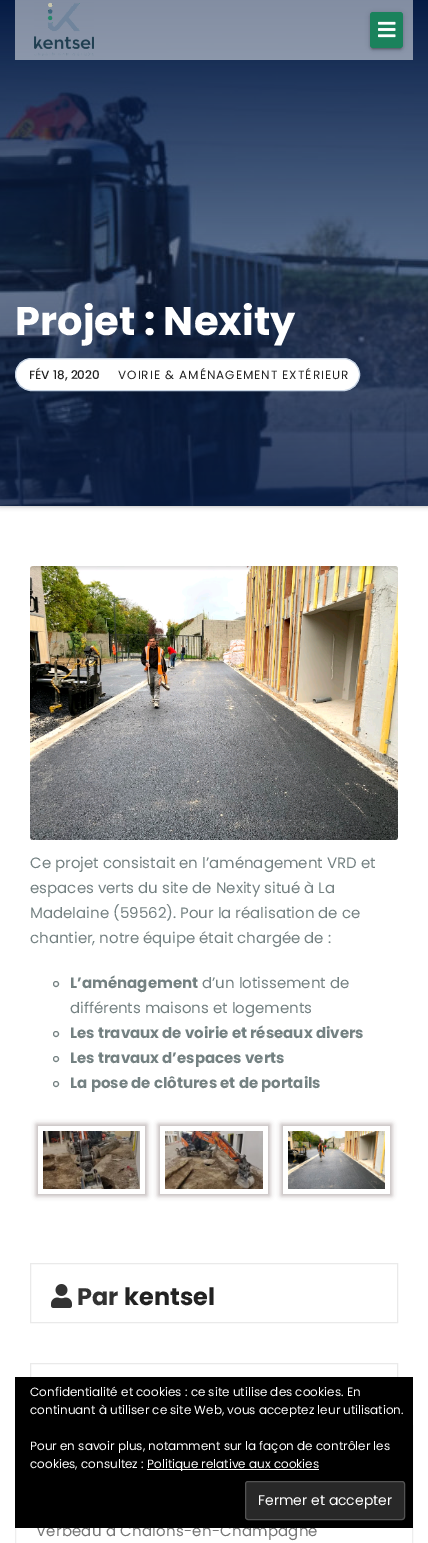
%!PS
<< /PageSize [428 1543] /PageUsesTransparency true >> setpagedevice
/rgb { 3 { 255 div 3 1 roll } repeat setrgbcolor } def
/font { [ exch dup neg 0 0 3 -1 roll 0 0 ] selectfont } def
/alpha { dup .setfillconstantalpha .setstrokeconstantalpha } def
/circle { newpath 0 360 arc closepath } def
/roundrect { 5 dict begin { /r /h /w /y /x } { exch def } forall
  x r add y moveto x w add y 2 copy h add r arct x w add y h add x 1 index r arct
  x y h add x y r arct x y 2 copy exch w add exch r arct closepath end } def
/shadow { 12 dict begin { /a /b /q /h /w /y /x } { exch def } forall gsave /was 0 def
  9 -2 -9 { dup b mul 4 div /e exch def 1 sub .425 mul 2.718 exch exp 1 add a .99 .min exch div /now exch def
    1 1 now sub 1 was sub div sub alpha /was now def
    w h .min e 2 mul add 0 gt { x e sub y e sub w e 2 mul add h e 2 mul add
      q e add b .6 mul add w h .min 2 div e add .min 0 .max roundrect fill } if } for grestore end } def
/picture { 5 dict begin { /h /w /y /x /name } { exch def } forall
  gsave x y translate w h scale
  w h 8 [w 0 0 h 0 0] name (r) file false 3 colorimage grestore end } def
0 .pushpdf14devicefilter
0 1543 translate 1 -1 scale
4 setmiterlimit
255 255 255 rgb
0 0 428 1543 rectfill
170 170 170 rgb
0 0 428 506 0 2.5 1 shadow
(img/3.rgb) 0 0 428 506 picture
0.5 alpha
255 255 255 rgb
15 0 398 60 rectfill
1 alpha
(img/1.rgb) 34 2 60 54 picture
0 0 0 rgb
370 13 33 36 3 2.5 0.12 shadow
372 17 29 32 1 0.5 0.2 shadow
370 14 33 36 3 1 0.14 shadow
26 130 92 rgb
370 12 33 36 3 roundrect fill
(img/2.rgb) 378 21 18 17 picture
255 255 255 rgb
15.5 358.5 344 32 16 roundrect gsave fill grestore
198 211 227 rgb
stroke
(img/4.rgb) 30 566 368 274 picture
116 129 130 rgb
56 984 2.5 circle stroke
56 1034 2.5 circle stroke
56 1059 2.5 circle stroke
56 1084 2.5 circle stroke
gsave
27 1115 moveto 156 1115 lineto 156 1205 lineto 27 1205 lineto closepath 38 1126 moveto 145 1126 lineto 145 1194 lineto 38 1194 lineto closepath eoclip newpath
45 20 20 rgb
36 1124 111 72 0 2.5 0.3 shadow
grestore
(img/5.rgb) 43 1131 97 58 picture
gsave
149 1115 moveto 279 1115 lineto 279 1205 lineto 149 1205 lineto closepath 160 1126 moveto 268 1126 lineto 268 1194 lineto 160 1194 lineto closepath eoclip newpath
45 20 20 rgb
158 1124 112 72 0 2.5 0.3 shadow
grestore
(img/6.rgb) 165 1131 98 58 picture
gsave
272 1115 moveto 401 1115 lineto 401 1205 lineto 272 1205 lineto closepath 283 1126 moveto 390 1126 lineto 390 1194 lineto 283 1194 lineto closepath eoclip newpath
45 20 20 rgb
281 1124 111 72 0 2.5 0.3 shadow
grestore
(img/7.rgb) 288 1131 97 58 picture
234 234 234 rgb
30.5 1263.5 367 59 rectstroke
(img/8.rgb) 51 1284 21 24 picture
30.5 1363.5 367 41 rectstroke
238 238 238 rgb
15.5 1425.5 397 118 rectstroke
/Poppins-Bold 40 font
255 255 255 rgb
15 335 moveto (Projet : Nexity) show
/Poppins-Medium 12 font
34 34 34 rgb
29 379 moveto (FÉV 18, 2020) show
/Poppins-Regular 12 font
118 379 moveto 1 0 (VOIRIE & AMÉNAGEMENT EXTÉRIEUR) ashow
/Poppins-Regular 15 font
116 129 130 rgb
[
  [(Ce projet consistait en l’aménagement VRD et) 30 868]
  [(espaces verts du site de Nexity situé à La) 30 893]
  [(Madelaine \(59562\). Pour la réalisation de ce) 30 918]
  [(chantier, notre équipe était chargée de :) 30 943]
] { aload pop moveto show } forall
/Poppins-Bold 15 font
70 988 moveto (L’aménagement) show
/Poppins-Regular 15 font
202 988 moveto (d’un lotissement de) show
70 1013 moveto (différents maisons et logements) show
/Poppins-Bold 15 font
[
  [(Les travaux de voirie et réseaux divers) 70 1038]
  [(Les travaux d’espaces verts) 70 1063]
  [(La pose de clôtures et de portails) 70 1088]
] { aload pop moveto show } forall
/Poppins-Bold 24 font
51 51 51 rgb
77 1305 moveto (Par) show
34 34 34 rgb
124 1305 moveto (kentsel) show
/Poppins-Regular 15 font
117 117 117 rgb
36 1536 moveto 0.2 0 (Verbeau à Châlons-en-Champagne) ashow
0 0 0 rgb
15 1377 398 151 rectfill
/Poppins-Regular 12 font
255 255 255 rgb
[
  [(Confidentialité et cookies : ce site utilise des cookies. En) 30 1396]
  [(continuant à utiliser ce site Web, vous acceptez leur utilisation.) 30 1414]
  [(Pour en savoir plus, notamment sur la façon de contrôler les) 30 1450]
  [(cookies, consultez :) 30 1468]
] { aload pop moveto show } forall
147 1469 172 1 rectfill
147 1468 moveto (Politique relative aux cookies) show
40 40 40 rgb
245.5 1481.5 159 38 2.5 roundrect gsave fill grestore
83 83 83 rgb
stroke
/Poppins-Regular 14 font
255 255 255 rgb
258 1505 moveto (Fermer et accepter) show
.poppdf14devicefilter showpage
